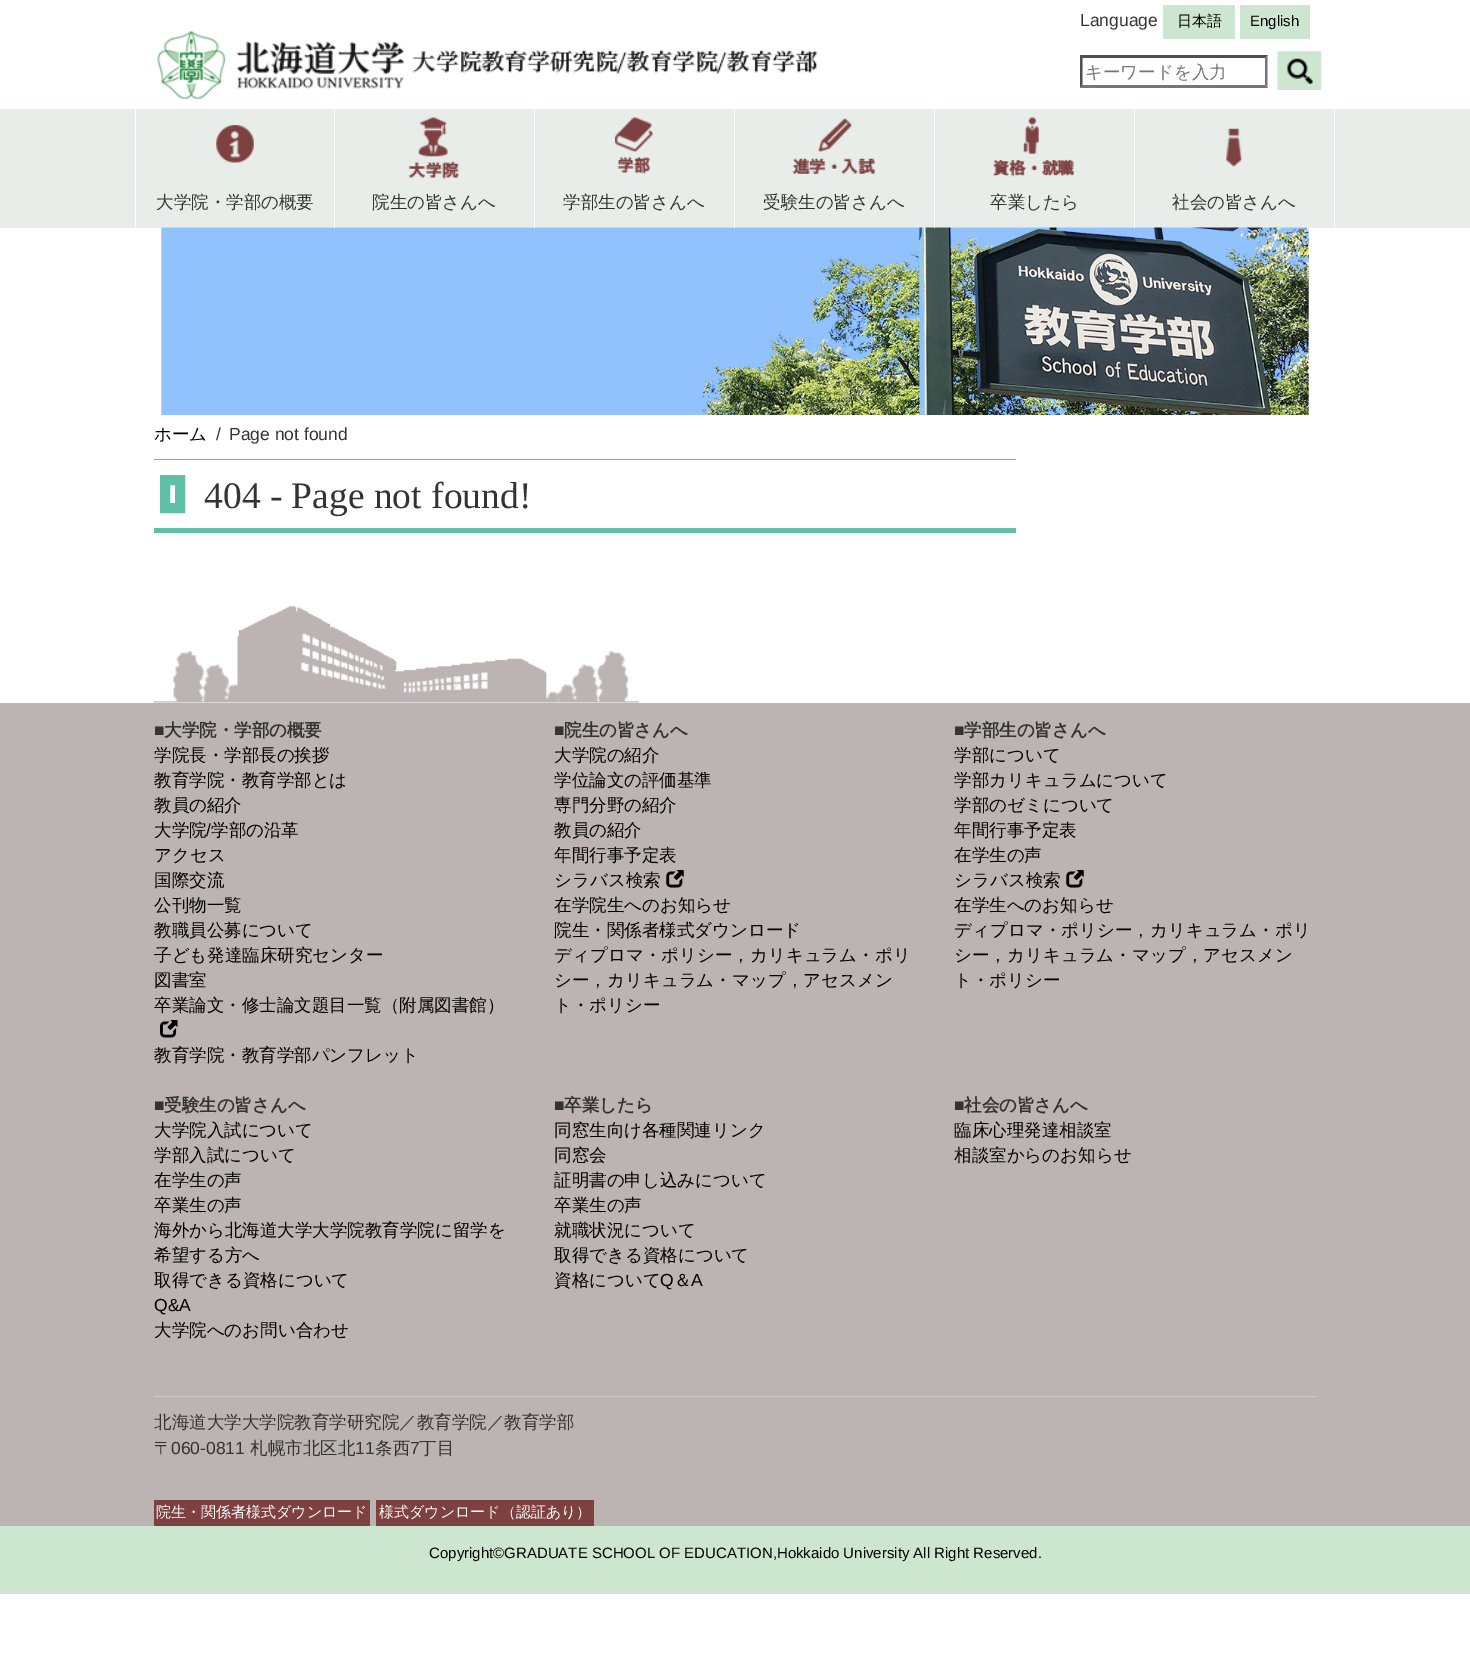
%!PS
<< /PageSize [1470 1675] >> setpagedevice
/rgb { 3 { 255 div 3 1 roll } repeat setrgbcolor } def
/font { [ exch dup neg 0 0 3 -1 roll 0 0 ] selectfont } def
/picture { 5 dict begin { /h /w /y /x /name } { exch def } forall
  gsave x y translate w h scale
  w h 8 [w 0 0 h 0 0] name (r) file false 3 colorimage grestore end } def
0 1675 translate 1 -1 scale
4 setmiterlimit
255 255 255 rgb
0 0 1470 1675 rectfill
(img/1.rgb) 157 31 661 68 picture
205 230 208 rgb
1163 5 72 34 rectfill
1240 5 70 34 rectfill
79 79 79 rgb
1080 55 moveto 1268 55 lineto 1265 58 lineto 1082 58 lineto closepath fill
118 118 118 rgb
1267.5 55 moveto 1267.5 87.5 lineto 1265 85 lineto 1265 57.5 lineto closepath fill
1268 88 moveto 1080 88 lineto 1082 85 lineto 1265 85 lineto closepath fill
79 79 79 rgb
1080 87.5 moveto 1080 55 lineto 1082.5 57.5 lineto 1082.5 85 lineto closepath fill
(img/2.rgb) 1277 51 45 39 picture
232 237 233 rgb
0 109 1470 119 rectfill
(img/3.rgb) 216 125 38 38 picture
(img/9.rgb) 161 227 1148 188 picture
255 255 255 rgb
334 109 1 119 rectfill
135 109 1 119 rectfill
(img/4.rgb) 408 117 51 62 picture
534 109 1 119 rectfill
(img/5.rgb) 615 117 38 57 picture
734 109 1 119 rectfill
(img/6.rgb) 792 118 83 56 picture
934 109 1 119 rectfill
(img/7.rgb) 993 117 81 60 picture
1134 109 1 119 rectfill
(img/8.rgb) 1226 128 16 39 picture
[
  [1334 109 1 119 255 255 255]
  [154 459 862 1 96 191 167]
  [154 528 862 5 96 191 167]
] { aload pop rgb rectfill } forall
10 setlinewidth
165 480 15 28 rectstroke
(img/10.rgb) 153 590 486 113 picture
188 179 179 rgb
0 703 1470 823 rectfill
(img/11.rgb) 160 1020 18 18 picture
(img/12.rgb) 666 870 18 18 picture
(img/12.rgb) 1066 870 18 18 picture
[
  [154 1396 1162 1 204 204 204]
  [154 1500 216 26 125 65 65]
  [376 1500 218 26 125 65 65]
  [0 1526 1470 68 205 230 208]
] { aload pop rgb rectfill } forall
/LiberationSans-Regular 17.5 font
51 51 51 rgb
1080 26 moveto (Language) show
/WenQuanYiZenHei-Medium 15 font
0 0 0 rgb
1177 26 moveto (日本語) show
/LiberationSans-Regular 15 font
1250 26 moveto (English) show
/WenQuanYiZenHei-Medium 17.5 font
117 117 117 rgb
1085 78 moveto (キーワードを入力) show
51 51 51 rgb
[
  [(大学院・学部の概要) 156 208]
  [(院生の皆さんへ) 372 208]
  [(学部生の皆さんへ) 563 208]
  [(受験生の皆さんへ) 763 208]
  [(卒業したら) 990 208]
  [(社会の皆さんへ) 1172 208]
] { aload pop moveto show } forall
0 0 0 rgb
154 440 moveto (ホーム) show
/LiberationSans-Regular 17.5 font
51 51 51 rgb
216 440 moveto (/) show
229 440 moveto (Page not found) show
/LiberationSerif-Regular 37.5 font
204 508 moveto (404 - Page not found!) show
/LiberationSans-Bold 17.5 font
154 736 moveto (■) show
/WenQuanYiZenHei-Bold 17.5 font
164 736 moveto (大学院・学部の概要) show
/WenQuanYiZenHei-Medium 17.5 font
0 0 0 rgb
[
  [(学院長・学部長の挨拶) 154 761]
  [(教育学院・教育学部とは) 154 786]
  [(教員の紹介) 154 811]
  [(大学院) 154 836]
] { aload pop moveto show } forall
/LiberationSans-Regular 17.5 font
206 836 moveto (/) show
/WenQuanYiZenHei-Medium 17.5 font
[
  [(学部の沿革) 211 836]
  [(アクセス) 154 861]
  [(国際交流) 154 886]
  [(公刊物一覧) 154 911]
  [(教職員公募について) 154 936]
  [(子ども発達臨床研究センター) 154 961]
  [(図書室) 154 986]
  [(卒業論文・修士論文題目一覧（附属図書館）) 154 1011]
  [(教育学院・教育学部パンフレット) 154 1061]
] { aload pop moveto show } forall
/LiberationSans-Bold 17.5 font
51 51 51 rgb
554 736 moveto (■) show
/WenQuanYiZenHei-Bold 17.5 font
564 736 moveto (院生の皆さんへ) show
/WenQuanYiZenHei-Medium 17.5 font
0 0 0 rgb
[
  [(大学院の紹介) 554 761]
  [(学位論文の評価基準) 554 786]
  [(専門分野の紹介) 554 811]
  [(教員の紹介) 554 836]
  [(年間行事予定表) 554 861]
  [(シラバス検索) 554 886]
  [(在学院生へのお知らせ) 554 911]
  [(院生・関係者様式ダウンロード) 554 936]
  [(ディプロマ・ポリシー，カリキュラム・ポリ) 554 961]
  [(シー，カリキュラム・マップ，アセスメン) 554 986]
  [(ト・ポリシー) 554 1011]
] { aload pop moveto show } forall
/LiberationSans-Bold 17.5 font
51 51 51 rgb
954 736 moveto (■) show
/WenQuanYiZenHei-Bold 17.5 font
964 736 moveto (学部生の皆さんへ) show
/WenQuanYiZenHei-Medium 17.5 font
0 0 0 rgb
[
  [(学部について) 954 761]
  [(学部カリキュラムについて) 954 786]
  [(学部のゼミについて) 954 811]
  [(年間行事予定表) 954 836]
  [(在学生の声) 954 861]
  [(シラバス検索) 954 886]
  [(在学生へのお知らせ) 954 911]
  [(ディプロマ・ポリシー，カリキュラム・ポリ) 954 936]
  [(シー，カリキュラム・マップ，アセスメン) 954 961]
  [(ト・ポリシー) 954 986]
] { aload pop moveto show } forall
/LiberationSans-Bold 17.5 font
51 51 51 rgb
154 1111 moveto (■) show
/WenQuanYiZenHei-Bold 17.5 font
164 1111 moveto (受験生の皆さんへ) show
/WenQuanYiZenHei-Medium 17.5 font
0 0 0 rgb
[
  [(大学院入試について) 154 1136]
  [(学部入試について) 154 1161]
  [(在学生の声) 154 1186]
  [(卒業生の声) 154 1211]
  [(海外から北海道大学大学院教育学院に留学を) 154 1236]
  [(希望する方へ) 154 1261]
  [(取得できる資格について) 154 1286]
] { aload pop moveto show } forall
/LiberationSans-Regular 17.5 font
154 1311 moveto (Q&A) show
/WenQuanYiZenHei-Medium 17.5 font
154 1336 moveto (大学院へのお問い合わせ) show
/LiberationSans-Bold 17.5 font
51 51 51 rgb
554 1111 moveto (■) show
/WenQuanYiZenHei-Bold 17.5 font
564 1111 moveto (卒業したら) show
/WenQuanYiZenHei-Medium 17.5 font
0 0 0 rgb
[
  [(同窓生向け各種関連リンク) 554 1136]
  [(同窓会) 554 1161]
  [(証明書の申し込みについて) 554 1186]
  [(卒業生の声) 554 1211]
  [(就職状況について) 554 1236]
  [(取得できる資格について) 554 1261]
  [(資格について) 554 1286]
] { aload pop moveto show } forall
/LiberationSans-Regular 17.5 font
660 1286 moveto (Q) show
/WenQuanYiZenHei-Medium 17.5 font
674 1286 moveto (＆) show
/LiberationSans-Regular 17.5 font
691 1286 moveto (A) show
/LiberationSans-Bold 17.5 font
51 51 51 rgb
954 1111 moveto (■) show
/WenQuanYiZenHei-Bold 17.5 font
964 1111 moveto (社会の皆さんへ) show
/WenQuanYiZenHei-Medium 17.5 font
0 0 0 rgb
954 1136 moveto (臨床心理発達相談室) show
954 1161 moveto (相談室からのお知らせ) show
51 51 51 rgb
154 1428 moveto (北海道大学大学院教育学研究院／教育学院／教育学部) show
154 1454 moveto (〒) show
/LiberationSans-Regular 17.5 font
171 1454 moveto (060-0811) show
/WenQuanYiZenHei-Medium 17.5 font
250 1454 moveto (札幌市北区北) show
/LiberationSans-Regular 17.5 font
355 1454 moveto (11) show
/WenQuanYiZenHei-Medium 17.5 font
375 1454 moveto (条西) show
/LiberationSans-Regular 17.5 font
410 1454 moveto (7) show
/WenQuanYiZenHei-Medium 17.5 font
419 1454 moveto (丁目) show
/WenQuanYiZenHei-Medium 15 font
255 255 255 rgb
156 1517 moveto (院生・関係者様式ダウンロード) show
379 1517 moveto (様式ダウンロード（認証あり）) show
/LiberationSans-Regular 15 font
0 0 0 rgb
429 1558 moveto (Copyright©GRADUATE SCHOOL OF EDUCATION,Hokkaido University All Right Reserved.) show
showpage
